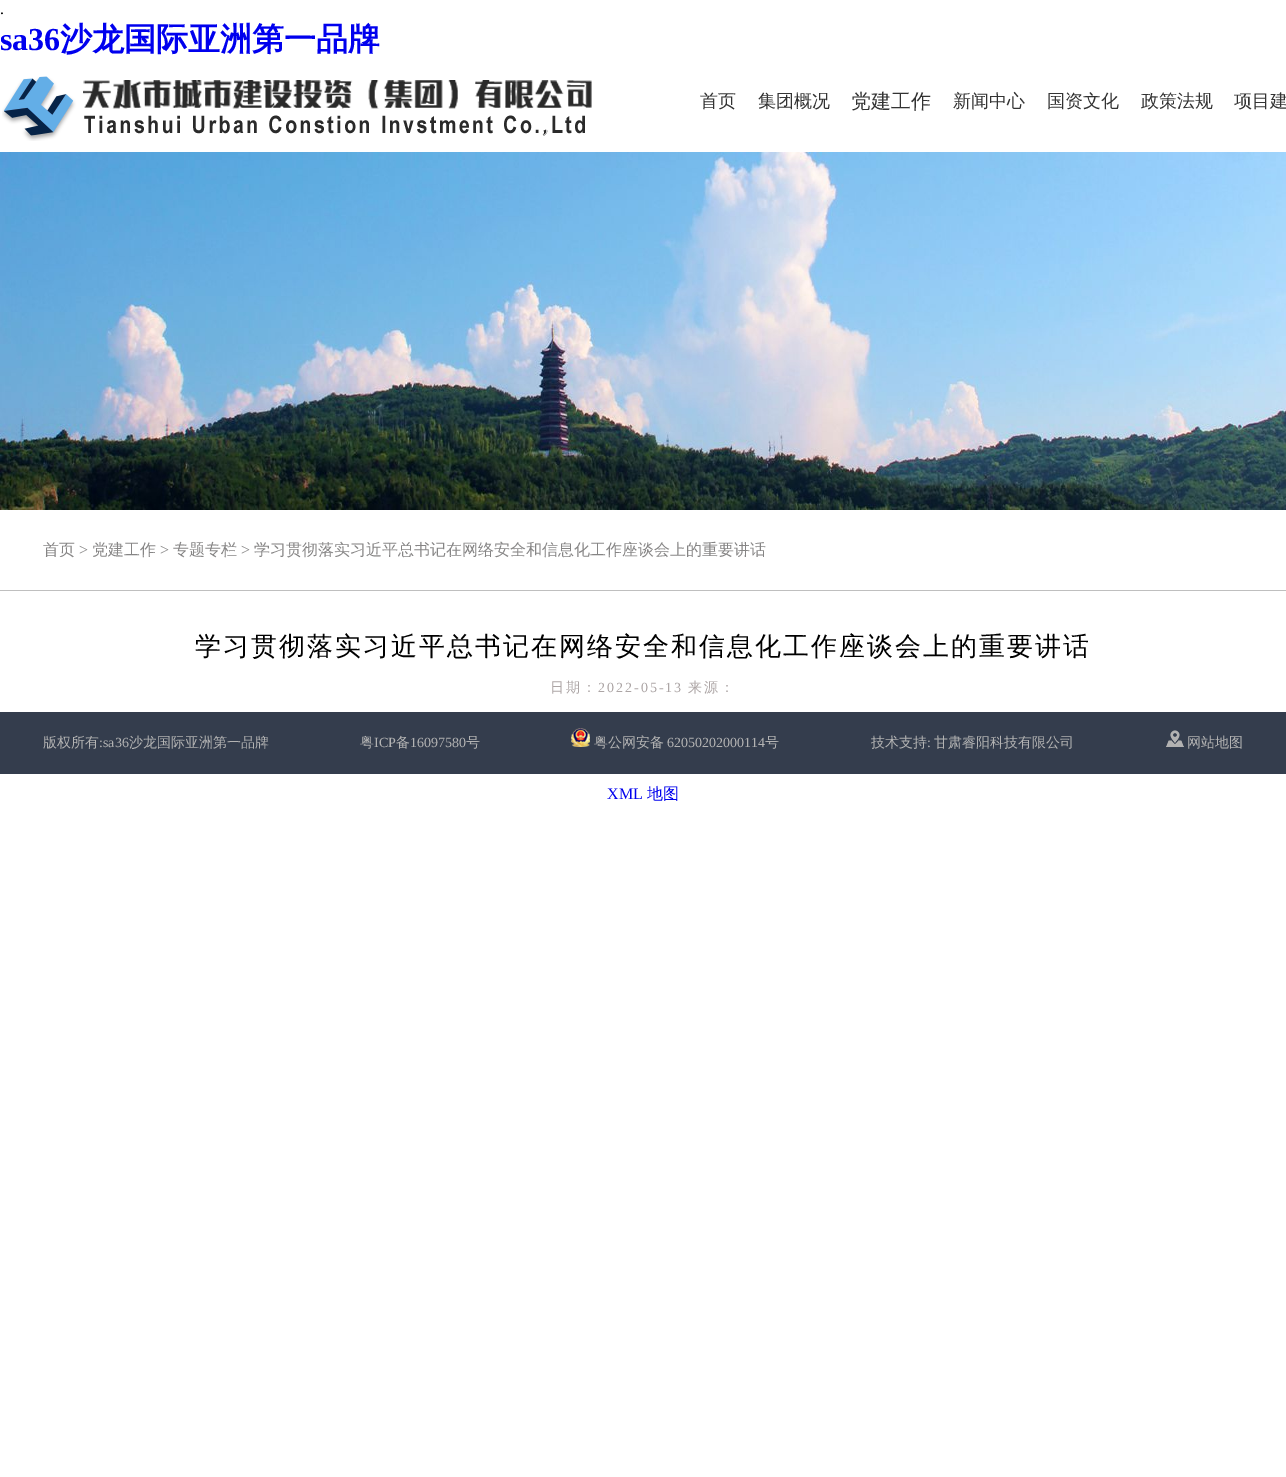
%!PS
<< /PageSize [1286 1477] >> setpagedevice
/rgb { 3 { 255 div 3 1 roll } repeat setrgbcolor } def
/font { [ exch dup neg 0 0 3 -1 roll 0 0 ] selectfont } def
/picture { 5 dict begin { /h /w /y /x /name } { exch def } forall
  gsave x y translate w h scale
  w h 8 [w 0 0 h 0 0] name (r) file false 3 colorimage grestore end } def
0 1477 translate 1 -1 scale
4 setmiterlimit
255 255 255 rgb
0 0 1286 1477 rectfill
(img/1.rgb) 2 76 590 65 picture
(img/2.rgb) 0 152 1286 358 picture
191 191 191 rgb
0 590 1286 1 rectfill
52 61 77 rgb
0 712 1286 62 rectfill
(img/3.rgb) 571 728 19 19 picture
(img/4.rgb) 1166 730 18 17 picture
/LiberationSerif-Regular 16 font
0 0 0 rgb
0 14 moveto (.) show
/LiberationSerif-Bold 32 font
0 0 238 rgb
0 50 moveto (sa36) show
/WenQuanYiZenHei-Bold 32 font
60 50 moveto (沙龙国际亚洲第一品牌) show
/WenQuanYiZenHei-Medium 18 font
51 51 51 rgb
700 107 moveto (首页) show
758 107 moveto (集团概况) show
/WenQuanYiZenHei-Medium 20 font
851 108 moveto (党建工作) show
/WenQuanYiZenHei-Medium 18 font
[
  [(新闻中心) 953 107]
  [(国资文化) 1047 107]
  [(政策法规) 1141 107]
  [(项目建) 1234 107]
] { aload pop moveto show } forall
/WenQuanYiZenHei-Medium 16 font
134 133 133 rgb
43 555 moveto (首页) show
/LiberationSerif-Regular 16 font
79 555 moveto (>) show
/WenQuanYiZenHei-Medium 16 font
92 555 moveto (党建工作) show
/LiberationSerif-Regular 16 font
160 555 moveto (>) show
/WenQuanYiZenHei-Medium 16 font
173 555 moveto (专题专栏) show
/LiberationSerif-Regular 16 font
241 555 moveto (>) show
/WenQuanYiZenHei-Medium 16 font
254 555 moveto (学习贯彻落实习近平总书记在网络安全和信息化工作座谈会上的重要讲话) show
/WenQuanYiZenHei-Medium 26 font
0 0 0 rgb
195 655 moveto 2 0 (学习贯彻落实习近平总书记在网络安全和信息化工作座谈会上的重要讲话) ashow
/WenQuanYiZenHei-Medium 14 font
172 165 165 rgb
550 692 moveto 2 0 (日期：) ashow
/LiberationSerif-Regular 14 font
598 692 moveto 2 0 (2022-05-13) ashow
/WenQuanYiZenHei-Medium 14 font
688 692 moveto 2 0 (来源：) ashow
179 179 179 rgb
43 747 moveto (版权所有) show
/LiberationSerif-Regular 14 font
99 747 moveto (:sa36) show
/WenQuanYiZenHei-Medium 14 font
129 747 moveto (沙龙国际亚洲第一品牌) show
360 747 moveto (粤) show
/LiberationSerif-Regular 14 font
374 747 moveto (ICP) show
/WenQuanYiZenHei-Medium 14 font
396 747 moveto (备) show
/LiberationSerif-Regular 14 font
410 747 moveto (16097580) show
/WenQuanYiZenHei-Medium 14 font
466 747 moveto (号) show
594 747 moveto (粤公网安备) show
/LiberationSerif-Regular 14 font
667 747 moveto (62050202000114) show
/WenQuanYiZenHei-Medium 14 font
765 747 moveto (号) show
871 747 moveto (技术支持) show
/LiberationSerif-Regular 14 font
927 747 moveto (:) show
/WenQuanYiZenHei-Medium 14 font
934 747 moveto (甘肃睿阳科技有限公司) show
1187 747 moveto (网站地图) show
/LiberationSerif-Regular 16 font
0 0 238 rgb
607 799 moveto (XML) show
/WenQuanYiZenHei-Medium 16 font
647 799 moveto (地图) show
showpage
